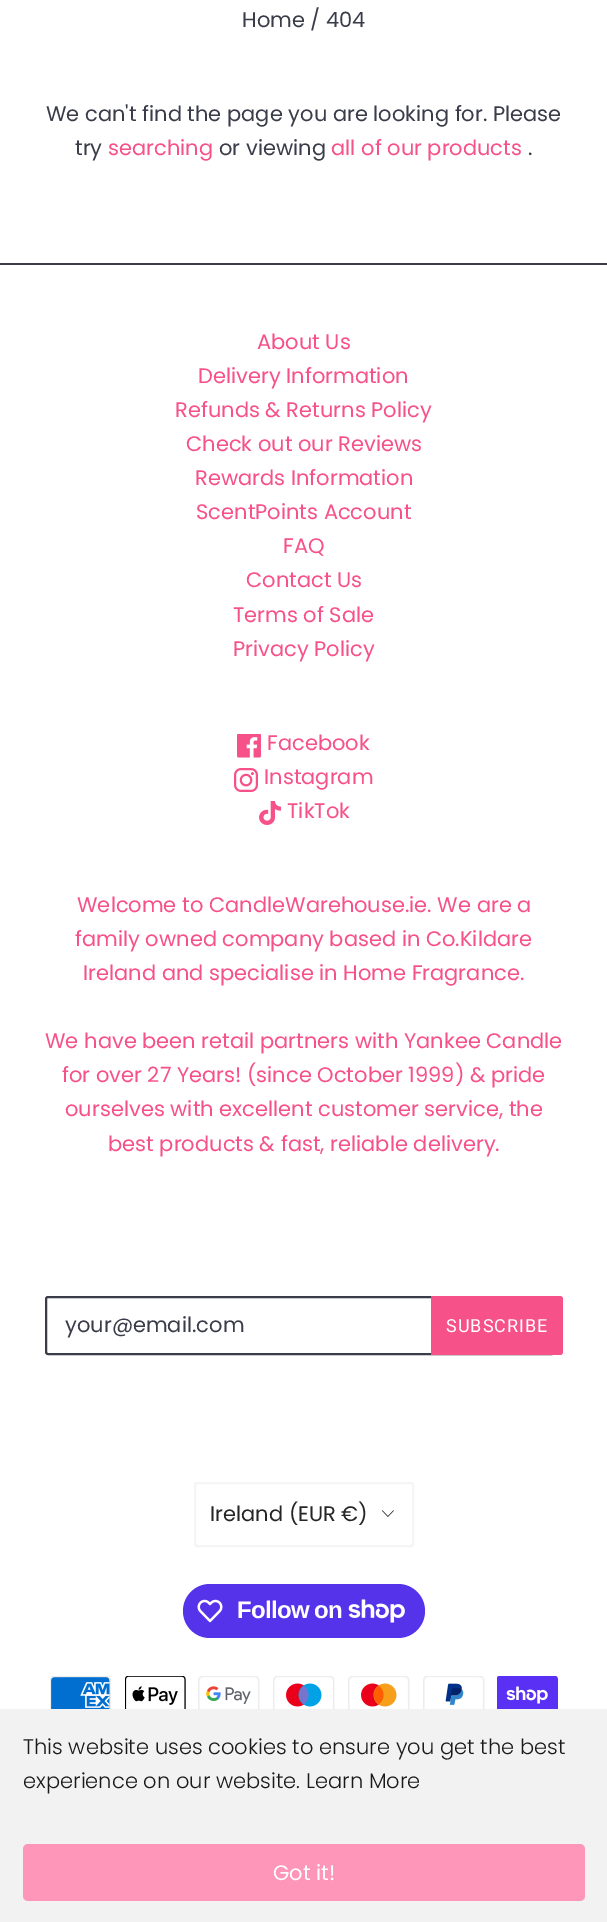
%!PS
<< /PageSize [607 1922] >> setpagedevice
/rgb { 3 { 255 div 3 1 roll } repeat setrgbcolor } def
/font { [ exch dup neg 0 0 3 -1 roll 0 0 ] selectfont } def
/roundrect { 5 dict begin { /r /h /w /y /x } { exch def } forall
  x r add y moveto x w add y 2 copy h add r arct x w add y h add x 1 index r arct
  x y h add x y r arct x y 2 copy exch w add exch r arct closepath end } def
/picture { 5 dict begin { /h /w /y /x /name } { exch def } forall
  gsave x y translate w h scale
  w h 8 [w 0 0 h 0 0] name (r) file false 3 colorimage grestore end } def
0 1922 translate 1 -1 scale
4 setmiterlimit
255 255 255 rgb
0 0 607 1922 rectfill
58 60 73 rgb
0 263 607 2 rectfill
(img/1.rgb) 237 734 24 24 picture
(img/2.rgb) 234 768 24 24 picture
(img/3.rgb) 259 801 22 24 picture
2 setlinewidth
46 1297 508 57 2 roundrect stroke
246 81 137 rgb
431 1296 moveto 560 1296 lineto 561.5 1296 563 1297.5 563 1299 curveto 563 1352 lineto 563 1353.5 561.5 1355 560 1355 curveto 431 1355 lineto closepath fill
245 245 245 rgb
195 1483 218 63 2 roundrect stroke
(img/4.rgb) 381 1510 13 7 picture
84 51 235 rgb
183 1584 242 54 27 roundrect fill
(img/5.rgb) 197 1599 26 24 picture
(img/6.rgb) 348 1599 57 24 picture
(img/7.rgb) 50 1676 61 33 picture
(img/8.rgb) 125 1676 61 33 picture
(img/9.rgb) 198 1676 62 33 picture
(img/10.rgb) 273 1676 62 33 picture
(img/11.rgb) 348 1676 62 33 picture
(img/12.rgb) 423 1676 62 33 picture
(img/13.rgb) 497 1676 61 33 picture
242 242 242 rgb
0 1709 607 213 rectfill
253 150 185 rgb
23 1844 562 57 5 roundrect fill
/Poppins-Regular 21 font
58 60 73 rgb
[
  [(Home / 404) 242 27]
  [(We can't find the page you are looking for. Please) 46 121]
  [(try) 75 155]
] { aload pop moveto show } forall
246 81 137 rgb
108 155 moveto (searching) show
58 60 73 rgb
219 155 moveto (or viewing) show
246 81 137 rgb
331 155 moveto (all of our products) show
58 60 73 rgb
528 155 moveto (.) show
246 81 137 rgb
[
  [(About Us) 257 349]
  [(Delivery Information) 198 383]
  [(Refunds & Returns Policy) 175 417]
  [(Check out our Reviews) 186 451]
  [(Rewards Information) 195 485]
  [(ScentPoints Account) 196 519]
  [(FAQ) 283 553]
  [(Contact Us) 246 587]
  [(Terms of Sale) 233 622]
  [(Privacy Policy) 233 656]
  [(Facebook) 267 750]
  [(Instagram) 264 784]
  [(TikTok) 287 818]
  [(Welcome to CandleWarehouse.ie. We are a) 77 912]
  [(family owned company based in Co.Kildare) 75 946]
  [(Ireland and specialise in Home Fragrance.) 83 980]
  [(We have been retail partners with Yankee Candle) 45 1048]
  [(for over 27 Years! \(since October 1999\) & pride) 62 1082]
  [(ourselves with excellent customer service, the) 65 1116]
  [(best products & fast, reliable delivery.) 108 1151]
] { aload pop moveto show } forall
58 60 73 rgb
65 1332 moveto (your@email.com) show
/Roboto-Regular 18 font
255 255 255 rgb
446 1332 moveto 1 0 (SUBSCRIBE) ashow
/Poppins-Regular 21 font
38 38 38 rgb
210 1521 moveto (Ireland \(EUR €\)) show
/LiberationSans-Bold 24 font
255 255 255 rgb
237 1618 moveto -0.75 0 (Follow on) ashow
/Poppins-Light 21 font
26 26 26 rgb
23 1754 moveto (This website uses cookies to ensure you get the best) show
23 1788 moveto (experience on our website. Learn More) show
/Poppins-Regular 21 font
255 255 255 rgb
273 1880 moveto (Got it!) show
showpage
